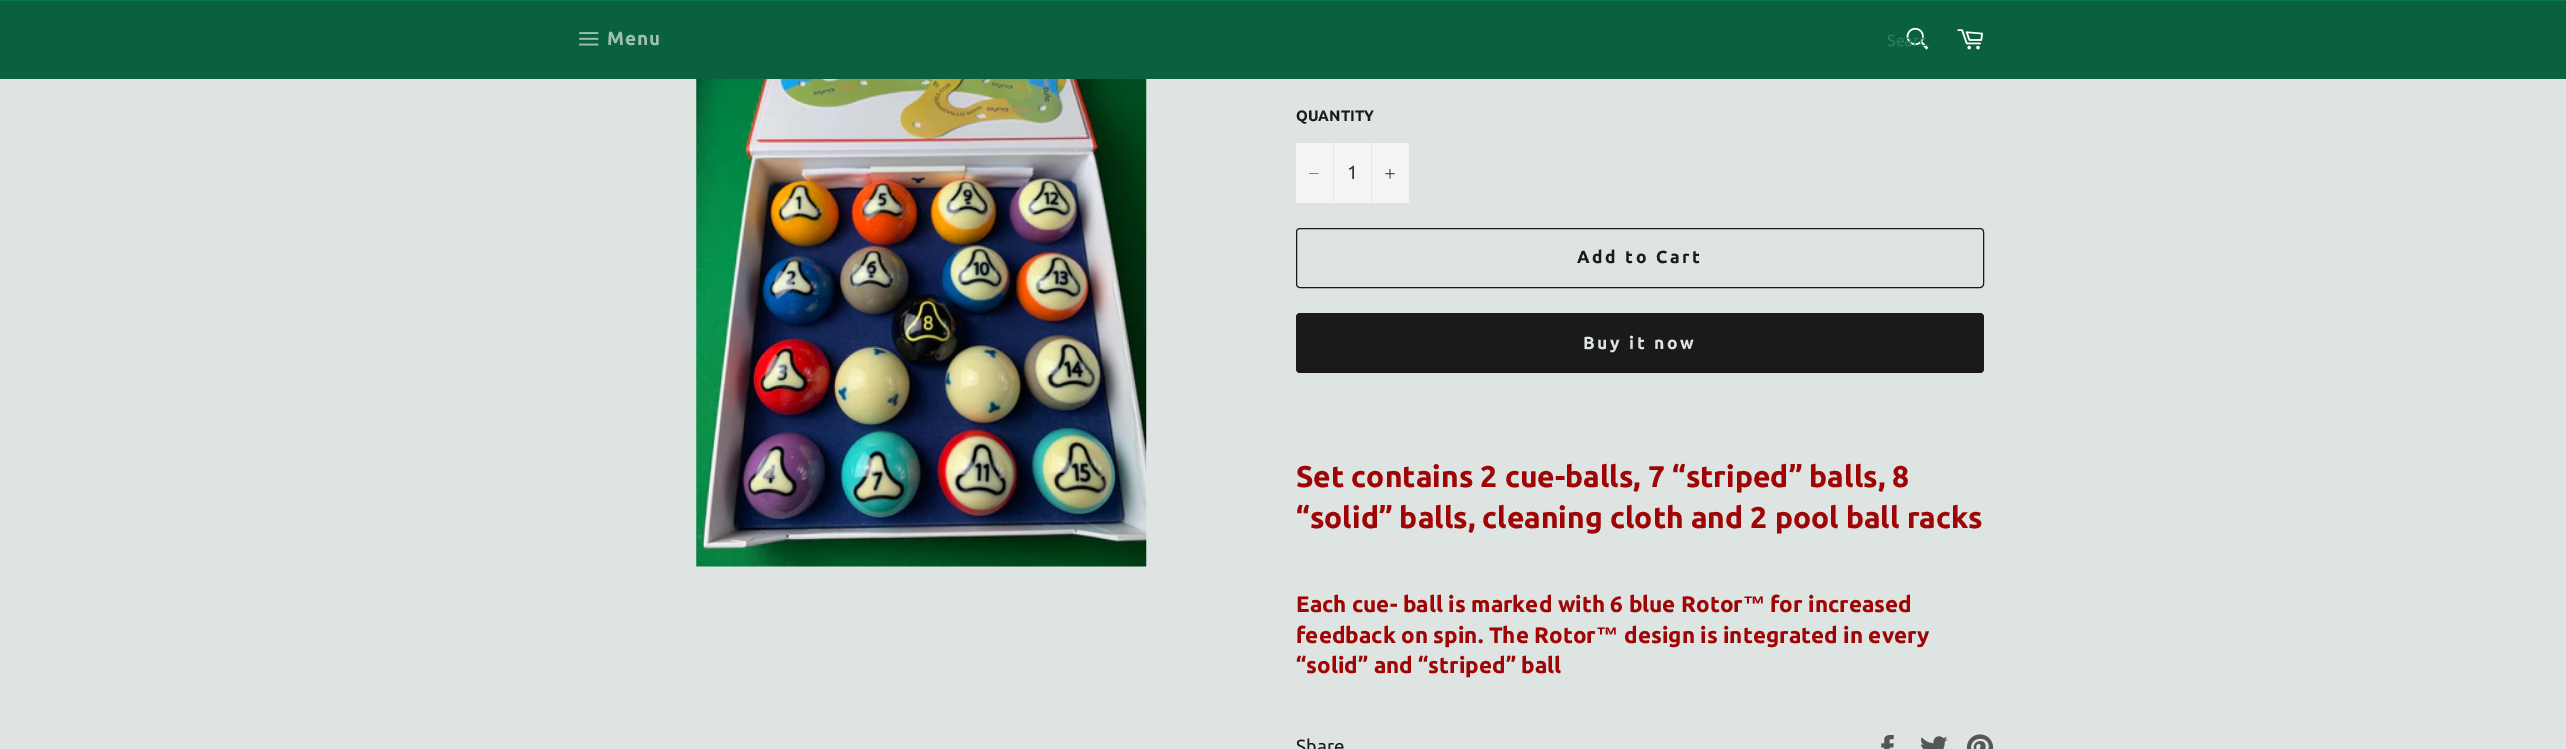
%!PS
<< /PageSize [2566 749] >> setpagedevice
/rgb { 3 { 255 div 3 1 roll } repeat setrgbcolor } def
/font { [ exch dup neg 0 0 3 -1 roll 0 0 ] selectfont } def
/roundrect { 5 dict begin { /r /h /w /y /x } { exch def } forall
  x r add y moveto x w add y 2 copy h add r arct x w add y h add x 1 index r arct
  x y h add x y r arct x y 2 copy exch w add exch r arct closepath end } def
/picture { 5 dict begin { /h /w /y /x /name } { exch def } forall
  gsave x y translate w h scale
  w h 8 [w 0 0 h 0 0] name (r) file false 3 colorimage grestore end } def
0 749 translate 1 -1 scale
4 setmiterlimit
222 228 226 rgb
0 0 2566 749 rectfill
9 97 61 rgb
0 1 2566 78 rectfill
11 120 76 rgb
0 0 2566 1 rectfill
(img/1.rgb) 579 32 20 14 picture
(img/2.rgb) 1906 27 23 23 picture
(img/3.rgb) 1957 29 26 21 picture
(img/4.rgb) 696 79 451 488 picture
244 244 244 rgb
1296 143 113 60 rectfill
231 231 231 rgb
1333 143 1 60 rectfill
26 26 26 rgb
1318.5 173.5 moveto 1318.5 174 lineto 1309 174 lineto 1309 173.5 lineto closepath eofill
231 231 231 rgb
1371 143 1 60 rectfill
(img/5.rgb) 1385 169 10 10 picture
26 26 26 rgb
1296.5 228.5 687 59 3.5 roundrect stroke
1296 313 688 60 4 roundrect fill
(img/6.rgb) 1881 735 13 14 picture
(img/7.rgb) 1921 736 27 13 picture
(img/8.rgb) 1966 734 28 15 picture
/Ubuntu-Bold 19 font
157 192 177 rgb
607 45 moveto 1 0 (Menu) ashow
gsave
1888 31 40 18 rectclip
/Ubuntu-Regular 16 font
51 124 94 rgb
1887 46 moveto (Searc) show
grestore
/Ubuntu-Bold 15 font
26 26 26 rgb
1296 121 moveto (QUANTITY) show
/Ubuntu-Regular 19 font
51 51 51 rgb
1347 179 moveto (1) show
/Ubuntu-Bold 17.5 font
26 26 26 rgb
1577 263 moveto 2.6 0 (Add to Cart) ashow
222 228 226 rgb
1583 349 moveto 2.6 0 (Buy it now) ashow
/Ubuntu-Bold 30 font
158 5 4 rgb
1296 487 moveto (Set contains 2 cue-balls, 7 “striped” balls, 8) show
1296 528 moveto (“solid” balls, cleaning cloth and 2 pool ball racks) show
/Ubuntu-Bold 22.5 font
1296 612 moveto (Each cue- ball is marked with 6 blue Rotor) show
/LiberationSans-Bold 22.5 font
1743 612 moveto (™) show
/Ubuntu-Bold 22.5 font
1770 612 moveto (for increased) show
1296 643 moveto (feedback on spin. The Rotor) show
/LiberationSans-Bold 22.5 font
1596 643 moveto (™) show
/Ubuntu-Bold 22.5 font
1624 643 moveto (design is integrated in every) show
1296 673 moveto (“solid” and “striped” ball) show
/Ubuntu-Regular 19 font
26 26 26 rgb
1296 753 moveto (Share) show
showpage
